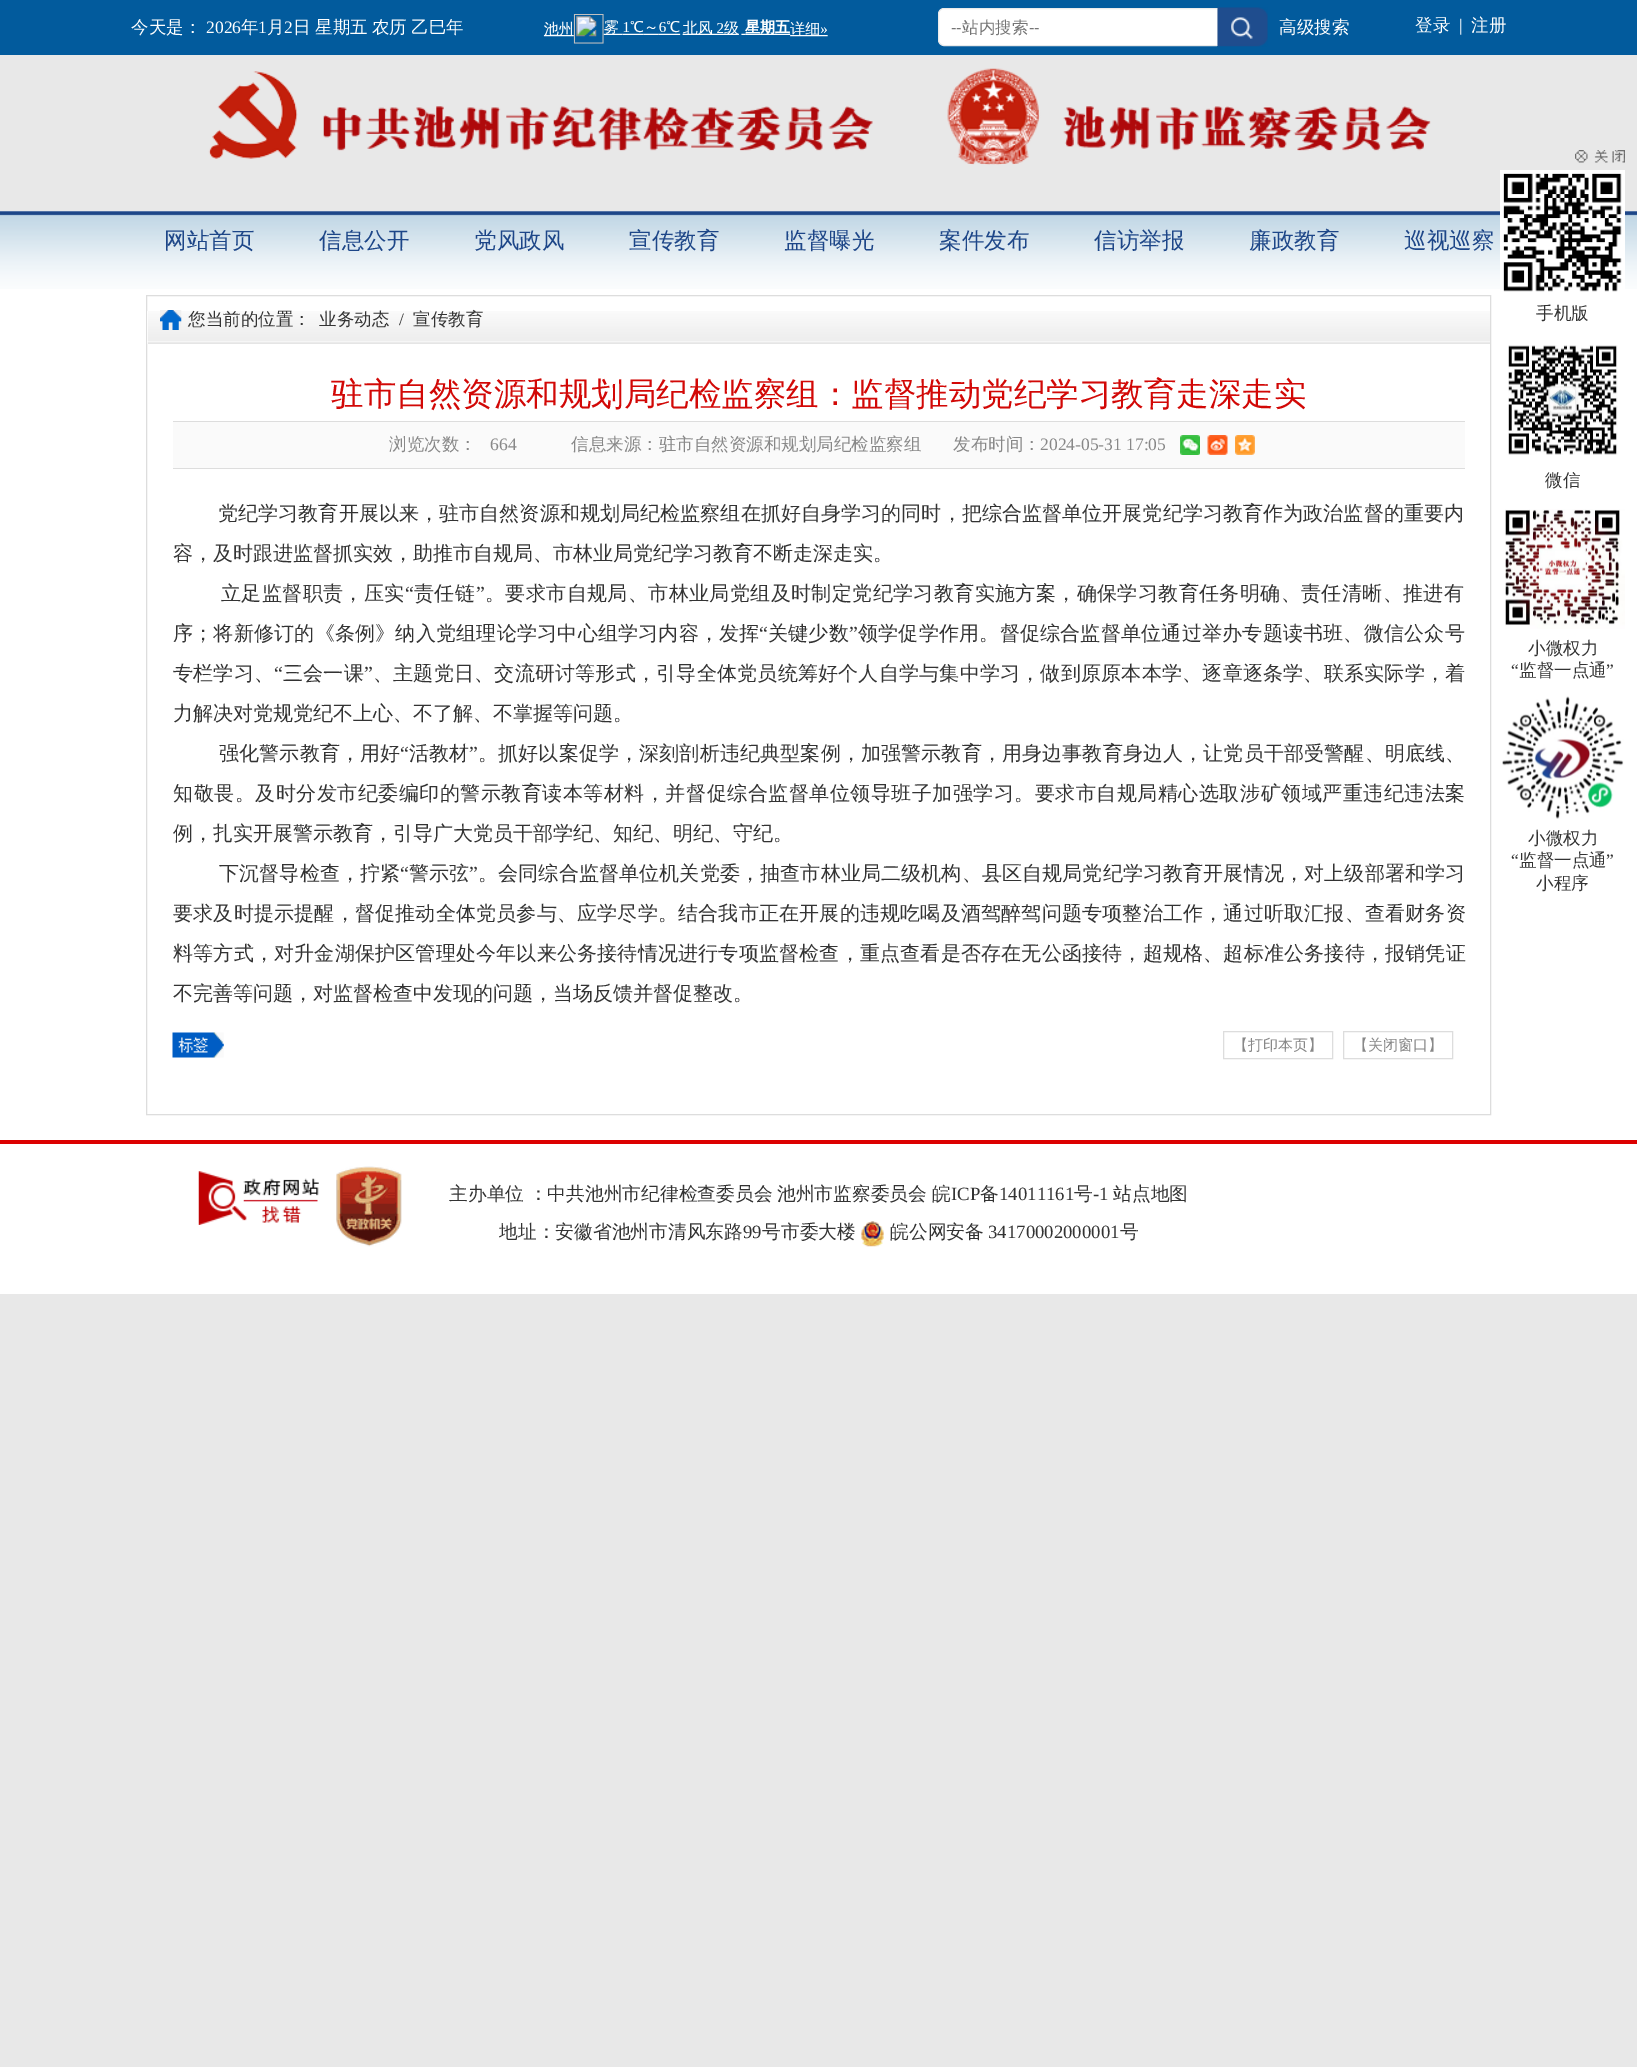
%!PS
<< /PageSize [1637 2067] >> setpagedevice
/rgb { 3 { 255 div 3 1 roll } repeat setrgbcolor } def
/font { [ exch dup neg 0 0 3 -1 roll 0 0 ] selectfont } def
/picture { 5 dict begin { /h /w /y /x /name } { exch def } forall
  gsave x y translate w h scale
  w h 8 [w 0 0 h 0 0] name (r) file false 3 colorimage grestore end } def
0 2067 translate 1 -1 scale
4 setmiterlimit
232 232 232 rgb
0 0 1637 2067 rectfill
2 91 157 rgb
0 0 1637 55 rectfill
(img/1.rgb) 543 14 285 30 picture
255 255 255 rgb
944 8.5 moveto 1217.5 8.5 lineto 1217.5 45.5 lineto 944 45.5 lineto 941 45.5 938.5 43 938.5 40 curveto 938.5 14 lineto 938.5 11 941 8.5 944 8.5 curveto closepath gsave fill grestore
234 234 234 rgb
stroke
(img/2.rgb) 1217 7 51 40 picture
(img/3.rgb) 208 68 1223 97 picture
255 255 255 rgb
0 211 1637 1083 rectfill
(img/4.rgb) 0 211 1637 78 picture
221 221 221 rgb
146.5 295.5 1344 819 rectstroke
(img/5.rgb) 147 311 1343 33 picture
(img/6.rgb) 160 310 22 20 picture
[
  [173 422 1292 46 250 250 250]
  [173 421 1292 1 221 221 221]
  [173 468 1292 1 221 221 221]
] { aload pop rgb rectfill } forall
(img/7.rgb) 1180 435 20 20 picture
(img/8.rgb) 1207 435 21 20 picture
(img/9.rgb) 1235 435 20 20 picture
(img/10.rgb) 172 1032 52 26 picture
1223.5 1031.5 109 27 rectstroke
1343.5 1031.5 109 27 rectstroke
(img/11.rgb) 1575 150 50 13 picture
(img/12.rgb) 1500 170 125 122 picture
(img/13.rgb) 1508 345 110 110 picture
(img/14.rgb) 1505 509 120 120 picture
(img/15.rgb) 1502 696 122 123 picture
220 0 0 rgb
0 1140 1637 4 rectfill
(img/16.rgb) 198 1171 121 54 picture
(img/17.rgb) 336 1166 66 81 picture
(img/18.rgb) 861 1221 23 26 picture
/WenQuanYiZenHei-Medium 17.5 font
255 255 255 rgb
131 33 moveto (今天是：) show
/LiberationSerif-Regular 17.5 font
206 33 moveto (2026) show
/WenQuanYiZenHei-Medium 17.5 font
241 33 moveto (年) show
/LiberationSerif-Regular 17.5 font
258 33 moveto (1) show
/WenQuanYiZenHei-Medium 17.5 font
267 33 moveto (月) show
/LiberationSerif-Regular 17.5 font
284 33 moveto (2) show
/WenQuanYiZenHei-Medium 17.5 font
293 33 moveto (日) show
315 33 moveto -1 0 32 (星期五 农历) widthshow
411 33 moveto (乙巳年) show
/LiberationSans-Regular 16.5 font
117 117 117 rgb
951 33 moveto (--) show
/WenQuanYiZenHei-Medium 16.5 font
962 33 moveto (站内搜索) show
/LiberationSans-Regular 16.5 font
1029 33 moveto (--) show
/WenQuanYiZenHei-Medium 17.5 font
255 255 255 rgb
1279 33 moveto (高级搜索) show
1415 31 moveto (登录) show
/LiberationSerif-Regular 17.5 font
1459 31 moveto (|) show
/WenQuanYiZenHei-Medium 17.5 font
1471 31 moveto (注册) show
/WenQuanYiZenHei-Medium 22.5 font
29 70 136 rgb
[
  [(网站首页) 164 248]
  [(信息公开) 319 248]
  [(党风政风) 474 248]
  [(宣传教育) 629 248]
  [(监督曝光) 784 248]
  [(案件发布) 939 248]
  [(信访举报) 1094 248]
  [(廉政教育) 1249 248]
  [(巡视巡察) 1404 248]
] { aload pop moveto show } forall
/WenQuanYiZenHei-Medium 17.5 font
51 51 51 rgb
188 325 moveto (您当前的位置：) show
319 325 moveto (业务动态) show
/LiberationSerif-Regular 17.5 font
399 325 moveto (/) show
/WenQuanYiZenHei-Medium 17.5 font
413 325 moveto (宣传教育) show
/WenQuanYiZenHei-Medium 32.5 font
210 8 6 rgb
331 405 moveto (驻市自然资源和规划局纪检监察组：监督推动党纪学习教育走深走实) show
/WenQuanYiZenHei-Medium 17.5 font
136 136 136 rgb
389 450 moveto (浏览次数：) show
/LiberationSerif-Regular 17.5 font
490 450 moveto (664) show
/WenQuanYiZenHei-Medium 17.5 font
571 450 moveto (信息来源：驻市自然资源和规划局纪检监察组) show
953 450 moveto (发布时间：) show
/LiberationSerif-Regular 17.5 font
1040 450 moveto (2024-05-31 17:05) show
/WenQuanYiZenHei-Medium 20 font
51 51 51 rgb
218 520 moveto 0.1 0 (党纪学习教育开展以来，驻市自然资源和规划局纪检监察组在抓好自身学习的同时，把综合监督单位开展党纪学习教育作为政治监督的重要内) ashow
173 560 moveto (容，及时跟进监督抓实效，助推市自规局、市林业局党纪学习教育不断走深走实。) show
221 600 moveto 0.4 0 (立足监督职责，压实) ashow
/LiberationSerif-Regular 20 font
405 600 moveto 0.4 0 (“) ashow
/WenQuanYiZenHei-Medium 20 font
414 600 moveto 0.4 0 (责任链) ashow
/LiberationSerif-Regular 20 font
476 600 moveto 0.4 0 (”) ashow
/WenQuanYiZenHei-Medium 20 font
485 600 moveto 0.4 0 (。要求市自规局、市林业局党组及时制定党纪学习教育实施方案，确保学习教育任务明确、责任清晰、推进有) ashow
173 640 moveto 0.23 0 (序；将新修订的《条例》纳入党组理论学习中心组学习内容，发挥) ashow
/LiberationSerif-Regular 20 font
759 640 moveto 0.23 0 (“) ashow
/WenQuanYiZenHei-Medium 20 font
768 640 moveto 0.23 0 (关键少数) ashow
/LiberationSerif-Regular 20 font
849 640 moveto 0.23 0 (”) ashow
/WenQuanYiZenHei-Medium 20 font
858 640 moveto 0.23 0 (领学促学作用。督促综合监督单位通过举办专题读书班、微信公众号) ashow
173 680 moveto 0.23 0 (专栏学习、) ashow
/LiberationSerif-Regular 20 font
274 680 moveto 0.23 0 (“) ashow
/WenQuanYiZenHei-Medium 20 font
283 680 moveto 0.23 0 (三会一课) ashow
/LiberationSerif-Regular 20 font
364 680 moveto 0.23 0 (”) ashow
/WenQuanYiZenHei-Medium 20 font
373 680 moveto 0.23 0 (、主题党日、交流研讨等形式，引导全体党员统筹好个人自学与集中学习，做到原原本本学、逐章逐条学、联系实际学，着) ashow
173 720 moveto (力解决对党规党纪不上心、不了解、不掌握等问题。) show
219 760 moveto 0.15 0 (强化警示教育，用好) ashow
/LiberationSerif-Regular 20 font
400 760 moveto 0.15 0 (“) ashow
/WenQuanYiZenHei-Medium 20 font
409 760 moveto 0.15 0 (活教材) ashow
/LiberationSerif-Regular 20 font
469 760 moveto 0.15 0 (”) ashow
/WenQuanYiZenHei-Medium 20 font
478 760 moveto 0.15 0 (。抓好以案促学，深刻剖析违纪典型案例，加强警示教育，用身边事教育身边人，让党员干部受警醒、明底线、) ashow
173 800 moveto 0.52 0 (知敬畏。及时分发市纪委编印的警示教育读本等材料，并督促综合监督单位领导班子加强学习。要求市自规局精心选取涉矿领域严重违纪违法案) ashow
173 840 moveto (例，扎实开展警示教育，引导广大党员干部学纪、知纪、明纪、守纪。) show
219 880 moveto 0.15 0 (下沉督导检查，拧紧) ashow
/LiberationSerif-Regular 20 font
400 880 moveto 0.15 0 (“) ashow
/WenQuanYiZenHei-Medium 20 font
409 880 moveto 0.15 0 (警示弦) ashow
/LiberationSerif-Regular 20 font
469 880 moveto 0.15 0 (”) ashow
/WenQuanYiZenHei-Medium 20 font
478 880 moveto 0.15 0 (。会同综合监督单位机关党委，抽查市林业局二级机构、县区自规局党纪学习教育开展情况，对上级部署和学习) ashow
173 920 moveto 0.2 0 (要求及时提示提醒，督促推动全体党员参与、应学尽学。结合我市正在开展的违规吃喝及酒驾醉驾问题专项整治工作，通过听取汇报、查看财务资) ashow
173 960 moveto 0.2 0 (料等方式，对升金湖保护区管理处今年以来公务接待情况进行专项监督检查，重点查看是否存在无公函接待，超规格、超标准公务接待，报销凭证) ashow
173 1000 moveto (不完善等问题，对监督检查中发现的问题，当场反馈并督促整改。) show
/WenQuanYiZenHei-Medium 15 font
136 136 136 rgb
1233 1050 moveto (【打印本页】) show
1353 1050 moveto (【关闭窗口】) show
/WenQuanYiZenHei-Medium 17.5 font
51 51 51 rgb
[
  [(手机版) 1536 319]
  [(微信) 1545 486]
  [(小微权力) 1528 654]
] { aload pop moveto show } forall
/LiberationSerif-Regular 17.5 font
1511 676 moveto (“) show
/WenQuanYiZenHei-Medium 17.5 font
1519 676 moveto (监督一点通) show
/LiberationSerif-Regular 17.5 font
1606 676 moveto (”) show
/WenQuanYiZenHei-Medium 17.5 font
1528 844 moveto (小微权力) show
/LiberationSerif-Regular 17.5 font
1511 866 moveto (“) show
/WenQuanYiZenHei-Medium 17.5 font
1519 866 moveto (监督一点通) show
/LiberationSerif-Regular 17.5 font
1606 866 moveto (”) show
/WenQuanYiZenHei-Medium 17.5 font
1536 889 moveto (小程序) show
/WenQuanYiZenHei-Medium 18.75 font
449 1200 moveto -1 0 32 (主办单位 ：中共池州市纪律检查委员会 池州市监察委员会) widthshow
932 1200 moveto (皖) show
/LiberationSerif-Regular 18.75 font
951 1200 moveto (ICP) show
/WenQuanYiZenHei-Medium 18.75 font
980 1200 moveto (备) show
/LiberationSerif-Regular 18.75 font
999 1200 moveto (14011161) show
/WenQuanYiZenHei-Medium 18.75 font
1074 1200 moveto (号) show
/LiberationSerif-Regular 18.75 font
1093 1200 moveto (-1) show
/WenQuanYiZenHei-Medium 18.75 font
1113 1200 moveto (站点地图) show
499 1238 moveto (地址：安徽省池州市清风东路) show
/LiberationSerif-Regular 18.75 font
743 1238 moveto (99) show
/WenQuanYiZenHei-Medium 18.75 font
762 1238 moveto (号市委大楼) show
890 1238 moveto (皖公网安备) show
/LiberationSerif-Regular 18.75 font
988 1238 moveto (34170002000001) show
/WenQuanYiZenHei-Medium 18.75 font
1120 1238 moveto (号) show
showpage
